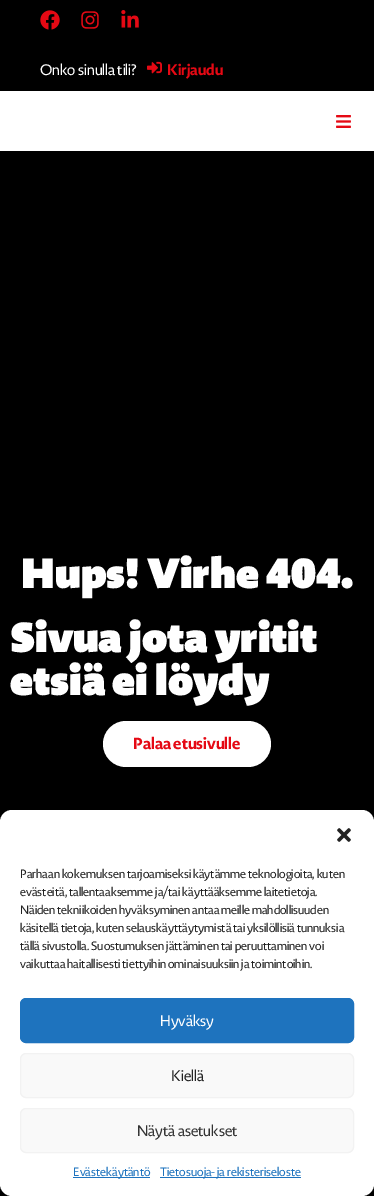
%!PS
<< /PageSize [374 1196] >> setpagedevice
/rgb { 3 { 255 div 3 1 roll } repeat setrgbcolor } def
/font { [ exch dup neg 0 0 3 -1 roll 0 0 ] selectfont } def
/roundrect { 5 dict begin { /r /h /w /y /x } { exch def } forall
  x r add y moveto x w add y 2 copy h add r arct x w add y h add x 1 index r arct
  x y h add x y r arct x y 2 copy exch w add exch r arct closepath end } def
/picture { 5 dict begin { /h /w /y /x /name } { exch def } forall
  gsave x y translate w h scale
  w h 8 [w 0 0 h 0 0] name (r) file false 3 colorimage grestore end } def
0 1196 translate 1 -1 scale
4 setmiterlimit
255 255 255 rgb
0 0 374 1196 rectfill
0 0 0 rgb
0 0 374 91 rectfill
(img/1.rgb) 40 10 20 20 picture
(img/2.rgb) 81 11 18 18 picture
(img/3.rgb) 121 10 18 18 picture
(img/4.rgb) 147 61 15 13 picture
(img/5.rgb) 336 115 15 13 picture
0 151 374 671 rectfill
255 255 255 rgb
103 721 168 46 23 roundrect fill
0 0 0 rgb
0 1184 374 12 rectfill
255 255 255 rgb
0 810 374 386 12 roundrect fill
(img/6.rgb) 337 828 14 14 picture
30 115 190 rgb
20.5 998.5 333 44 5.5 roundrect gsave fill grestore
stroke
249 249 249 rgb
20.5 1053.5 333 44 5.5 roundrect gsave fill grestore
242 242 242 rgb
stroke
249 249 249 rgb
20.5 1108.5 333 44 5.5 roundrect gsave fill grestore
242 242 242 rgb
stroke
30 115 190 rgb
73 1177 77 1 rectfill
160 1177 141 1 rectfill
/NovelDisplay-Medium 15 font
255 255 255 rgb
40 75 moveto (Onko sinulla tili?) show
/NovelDisplay-Bold 15 font
229 9 20 rgb
167 75 moveto (Kirjaudu) show
/NovelDisplay-Black 41.5 font
255 255 255 rgb
[
  [(Hups! Virhe 404.) 21 588]
  [(Sivua jota yritit) 10 652]
  [(etsiä ei löydy) 10 695]
] { aload pop moveto show } forall
/NovelDisplay-Bold 16 font
229 9 20 rgb
133 749 moveto (Palaa etusivulle) show
/NovelDisplay-Medium 12 font
34 34 34 rgb
[
  [(Parhaan kokemuksen tarjoamiseksi käytämme teknologioita, kuten) 20 878]
  [(evästeitä, tallentaaksemme ja/tai käyttääksemme laitetietoja.) 20 896]
  [(Näiden tekniikoiden hyväksyminen antaa meille mahdollisuuden) 20 914]
  [(käsitellä tietoja, kuten selauskäyttäytymistä tai yksilöllisiä tunnuksia) 20 932]
  [(tällä sivustolla. Suostumuksen jättäminen tai peruuttaminen voi) 20 950]
  [(vaikuttaa haitallisesti tiettyihin ominaisuuksiin ja toimintoihin.) 20 968]
] { aload pop moveto show } forall
/NovelDisplay-Medium 15 font
255 255 255 rgb
160 1026 moveto (Hyväksy) show
34 34 34 rgb
171 1081 moveto (Kiellä) show
51 51 51 rgb
137 1136 moveto (Näytä asetukset) show
/NovelDisplay-Medium 12 font
30 115 190 rgb
73 1176 moveto (Evästekäytäntö) show
160 1176 moveto (Tietosuoja- ja rekisteriseloste) show
showpage
